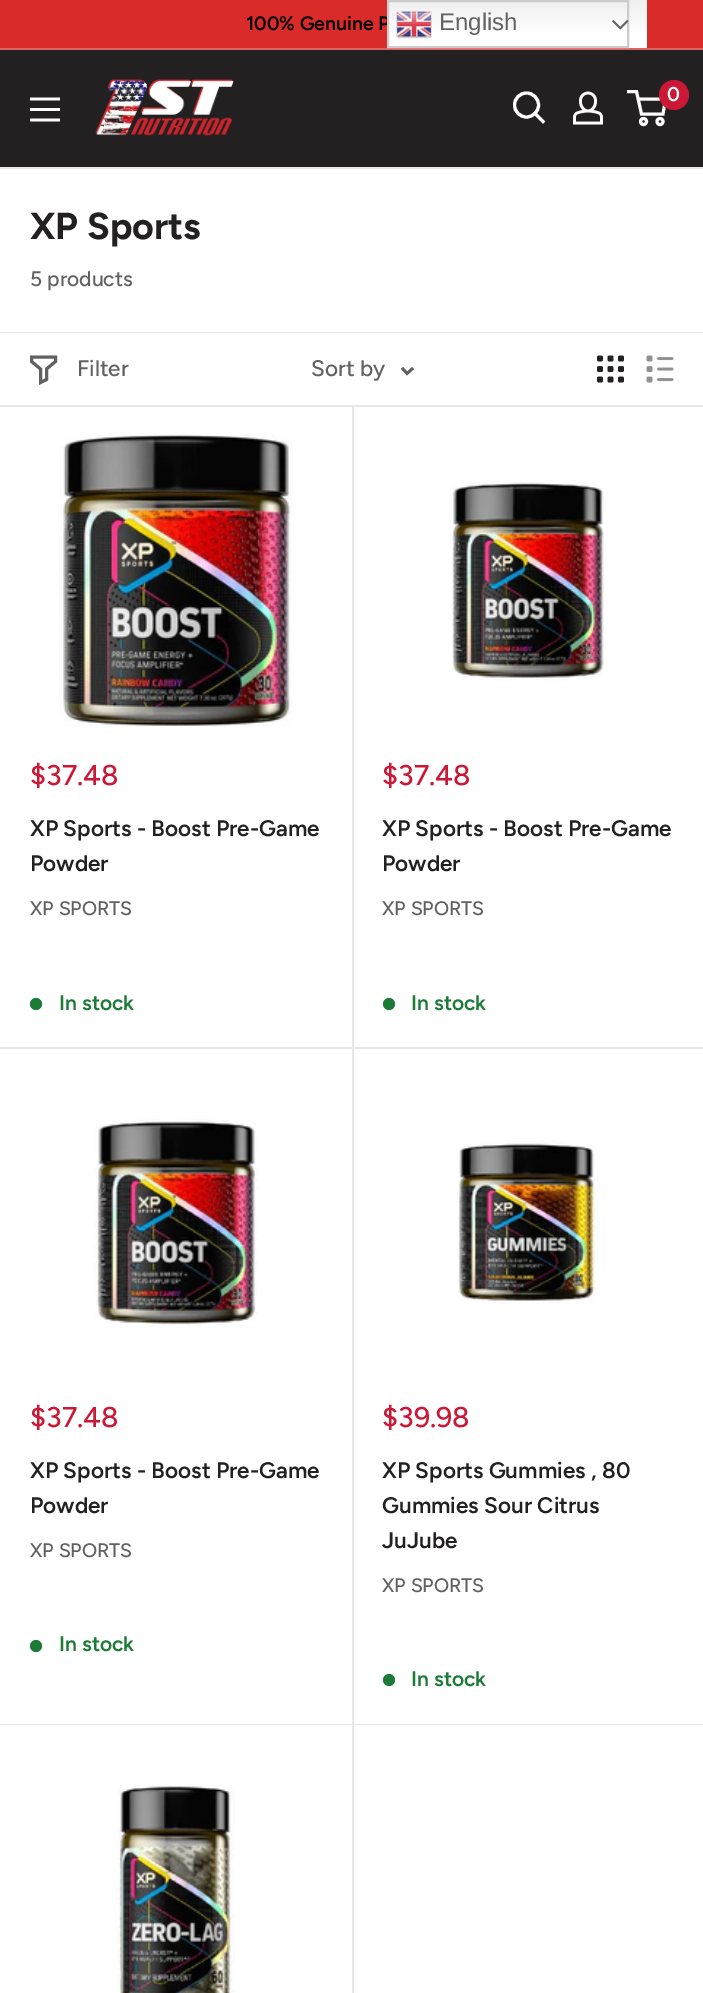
%!PS
<< /PageSize [703 1993] >> setpagedevice
/rgb { 3 { 255 div 3 1 roll } repeat setrgbcolor } def
/font { [ exch dup neg 0 0 3 -1 roll 0 0 ] selectfont } def
/circle { newpath 0 360 arc closepath } def
/picture { 5 dict begin { /h /w /y /x /name } { exch def } forall
  gsave x y translate w h scale
  w h 8 [w 0 0 h 0 0] name (r) file false 3 colorimage grestore end } def
0 1993 translate 1 -1 scale
4 setmiterlimit
216 43 42 rgb
0 0 703 1993 rectfill
221 100 99 rgb
0 48 703 2 rectfill
34 32 33 rgb
0 50 703 117 rectfill
(img/3.rgb) 95 79 139 57 picture
255 255 255 rgb
3.1 setlinewidth
2 setlinecap
543 121.5 moveto 535 113.5 lineto stroke
0 setlinecap
526.5 105 12 circle stroke
(img/4.rgb) 573 91 30 34 picture
3 setlinewidth
643.5 121.5 3 circle stroke
660 121.5 3 circle stroke
638 99 moveto 665.5 99 lineto 663 114 lineto 641.5 114 lineto 636.5 91.5 lineto 627 91.5 lineto stroke
203 24 54 rgb
674 95 15 circle fill
(img/5.rgb) 30 97 30 25 picture
255 255 255 rgb
0 169 703 1824 rectfill
232 232 232 rgb
0 167 703 2 rectfill
0 332 moveto 0 333 lineto 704 333 lineto 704 404 lineto 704 332 lineto closepath fill
97 97 97 rgb
2 setlinecap
55.5 361.5 moveto 46.5 369 lineto 46.5 379.5 lineto 40.5 382.5 lineto 40.5 369 lineto 31.5 361.5 lineto 31.5 357 lineto 55.5 357 lineto closepath stroke
2.8 setlinewidth
412 369 moveto 407 373.5 lineto 403 369 lineto stroke
(img/6.rgb) 597 355 27 28 picture
(img/7.rgb) 646 355 28 28 picture
(img/8.rgb) 59 434 234 293 picture
28 123 54 rgb
36 1004 6 circle fill
(img/9.rgb) 452 482 152 199 picture
389 1004 6 circle fill
232 232 232 rgb
353 1047 moveto 353 1049 lineto 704 1049 lineto 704 407 lineto 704 1047 lineto closepath fill
(img/10.rgb) 94 1119 164 208 picture
28 123 54 rgb
36 1646 6 circle fill
(img/11.rgb) 458 1141 140 163 picture
389 1680 6 circle fill
232 232 232 rgb
353 1724 moveto 353 1725 lineto 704 1725 lineto 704 1049 lineto 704 1724 lineto closepath fill
(img/12.rgb) 114 1784 121 209 picture
/Figtree-SemiBold 19.5 font
0 0 0 rgb
246 30 moveto (100% Genuine P) show
gsave 389 0 moveto 647 0 lineto 647 48 lineto 389 48 lineto closepath clip newpath
<< /ShadingType 2 /ColorSpace /DeviceRGB /Coords [517 0 517 48] /Extend [true true] /Function << /FunctionType 3 /Domain [0 1] /Functions [<< /FunctionType 2 /Domain [0 1] /C0 [0.937 0.937 0.937] /C1 [1 1 1] /N 1 >> << /FunctionType 2 /Domain [0 1] /C0 [1 1 1] /C1 [1 1 1] /N 1 >>] /Bounds [0.7] /Encode [0 1 0 1] >> >> shfill grestore
204 204 204 rgb
2 setlinewidth
0 setlinecap
388 1 240 46 rectstroke
(img/1.rgb) 396 11 36 28 picture
/LiberationSans-Regular 24 font
97 97 97 rgb
439 30 moveto (English) show
(img/2.rgb) 612 20 17 10 picture
/Figtree-SemiBold 20 font
255 255 255 rgb
667 101 moveto (0) show
/Figtree-Bold 37.5 font
34 32 33 rgb
30 239 moveto (XP Sports) show
/Figtree-Medium 21 font
97 97 97 rgb
30 286 moveto (5 products) show
/Figtree-Medium 22.5 font
77 376 moveto (Filter) show
311 376 moveto (Sort by) show
/Figtree-Medium 28.5 font
203 24 54 rgb
30 785 moveto ($37.48) show
/Figtree-SemiBold 22.5 font
34 32 33 rgb
30 836 moveto (XP Sports - Boost Pre-Game) show
30 871 moveto (Powder) show
/Figtree-Medium 19.5 font
97 97 97 rgb
30 915 moveto (XP SPORTS) show
/Figtree-SemiBold 21 font
28 123 54 rgb
59 1010 moveto (In stock) show
232 232 232 rgb
0 1047 moveto 0 1049 lineto 353 1049 lineto 353 407 lineto 352 407 lineto 352 1047 lineto closepath fill
352 405 2 642 rectfill
0 405 moveto 0 407 lineto 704 407 lineto 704 335 lineto 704 405 lineto closepath fill
/Figtree-Medium 28.5 font
203 24 54 rgb
382 785 moveto ($37.48) show
/Figtree-SemiBold 22.5 font
34 32 33 rgb
382 836 moveto (XP Sports - Boost Pre-Game) show
382 871 moveto (Powder) show
/Figtree-Medium 19.5 font
97 97 97 rgb
382 915 moveto (XP SPORTS) show
/Figtree-SemiBold 21 font
28 123 54 rgb
411 1010 moveto (In stock) show
/Figtree-Medium 28.5 font
203 24 54 rgb
30 1427 moveto ($37.48) show
/Figtree-SemiBold 22.5 font
34 32 33 rgb
30 1478 moveto (XP Sports - Boost Pre-Game) show
30 1513 moveto (Powder) show
/Figtree-Medium 19.5 font
97 97 97 rgb
30 1557 moveto (XP SPORTS) show
/Figtree-SemiBold 21 font
28 123 54 rgb
59 1651 moveto (In stock) show
232 232 232 rgb
0 1724 moveto 0 1725 lineto 353 1725 lineto 353 1049 lineto 352 1049 lineto 352 1724 lineto closepath fill
2 1724 moveto 354 1724 lineto 354 1047 lineto 352 1047 lineto 352 1724 lineto closepath fill
/Figtree-Medium 28.5 font
203 24 54 rgb
382 1427 moveto ($39.98) show
/Figtree-SemiBold 22.5 font
34 32 33 rgb
[
  [(XP Sports Gummies , 80) 382 1478]
  [(Gummies Sour Citrus) 382 1513]
  [(JuJube) 382 1548]
] { aload pop moveto show } forall
/Figtree-Medium 19.5 font
97 97 97 rgb
382 1592 moveto (XP SPORTS) show
/Figtree-SemiBold 21 font
28 123 54 rgb
411 1686 moveto (In stock) show
232 232 232 rgb
2 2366 moveto 354 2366 lineto 354 1724 lineto 352 1724 lineto 352 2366 lineto closepath fill
showpage
